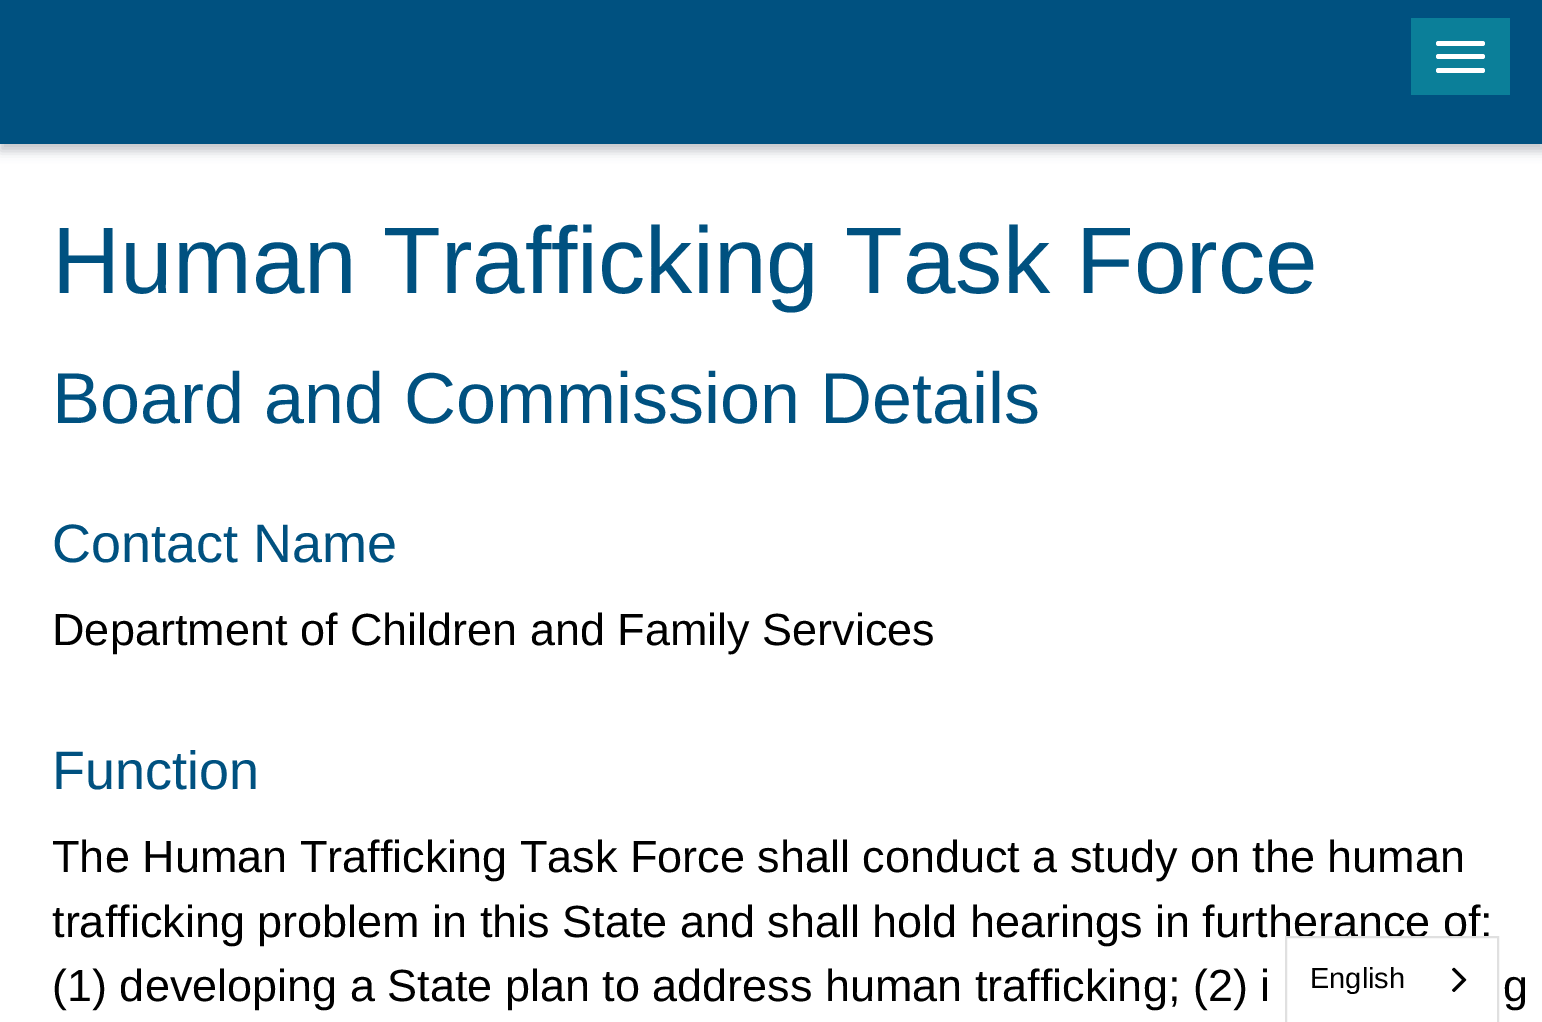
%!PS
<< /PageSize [1542 1022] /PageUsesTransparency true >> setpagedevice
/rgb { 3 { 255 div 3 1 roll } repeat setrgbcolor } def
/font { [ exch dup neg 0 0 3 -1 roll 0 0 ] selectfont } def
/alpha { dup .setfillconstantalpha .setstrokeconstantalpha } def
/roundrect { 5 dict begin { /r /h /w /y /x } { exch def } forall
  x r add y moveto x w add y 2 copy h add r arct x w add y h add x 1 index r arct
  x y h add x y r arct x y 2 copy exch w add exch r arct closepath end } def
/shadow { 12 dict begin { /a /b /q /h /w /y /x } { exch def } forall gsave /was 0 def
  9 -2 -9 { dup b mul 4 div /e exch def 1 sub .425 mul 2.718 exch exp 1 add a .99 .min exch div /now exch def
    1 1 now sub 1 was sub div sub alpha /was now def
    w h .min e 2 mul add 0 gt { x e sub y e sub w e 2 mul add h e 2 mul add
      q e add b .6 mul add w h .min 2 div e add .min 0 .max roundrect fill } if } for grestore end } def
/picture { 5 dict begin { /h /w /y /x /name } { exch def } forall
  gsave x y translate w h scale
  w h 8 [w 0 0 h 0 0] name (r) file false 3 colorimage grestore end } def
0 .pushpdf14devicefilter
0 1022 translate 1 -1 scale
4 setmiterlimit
255 255 255 rgb
0 0 1542 1022 rectfill
57 63 72 rgb
0 7 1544 144 0 5.5 0.3 shadow
0 81 128 rgb
0 0 1542 144 rectfill
11 127 153 rgb
1411 18 99 77 rectfill
255 255 255 rgb
1436 41 49 5 2.5 roundrect fill
1436 54 49 5 2.5 roundrect fill
1436 68 49 5 2.5 roundrect fill
/LiberationSans-Regular 94.5 font
0 81 128 rgb
52 293 moveto (Human Trafficking Task Force) show
/LiberationSans-Regular 72 font
52 423 moveto (Board and Commission Details) show
/LiberationSans-Regular 54 font
52 562 moveto (Contact Name) show
/LiberationSans-Regular 45 font
0 0 0 rgb
52 645 moveto (Department of Children and Family Services) show
/LiberationSans-Regular 54 font
0 81 128 rgb
52 789 moveto (Function) show
/LiberationSans-Regular 45 font
0 0 0 rgb
[
  [(The Human Trafficking Task Force shall conduct a study on the human) 52 872]
  [(trafficking problem in this State and shall hold hearings in furtherance of:) 52 937]
  [(\(1\) developing a State plan to address human trafficking; \(2\) i) 52 1001]
  [(g) 1503 1001]
] { aload pop moveto show } forall
224 224 224 rgb
2 setlinewidth
1286 937 212 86 rectstroke
/LiberationSans-Regular 29 font
0 0 0 rgb
1310 988 moveto (English) show
(img/1.rgb) 1452 967 15 25 picture
.poppdf14devicefilter showpage
